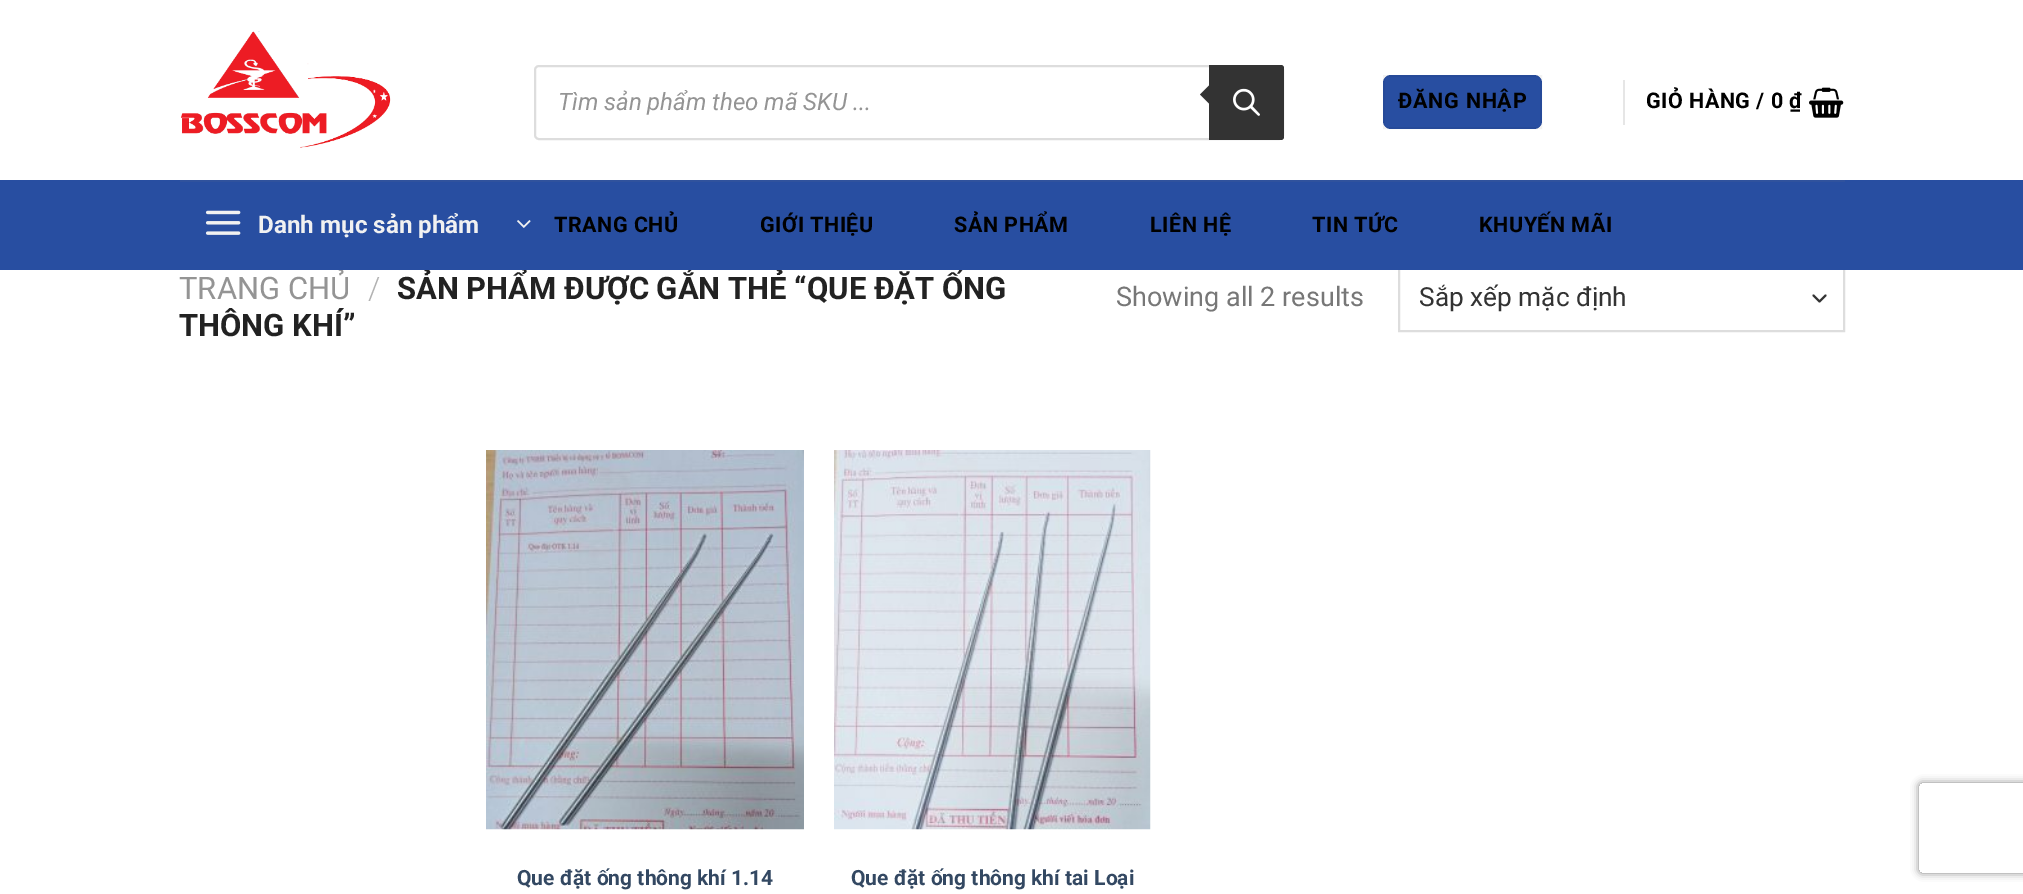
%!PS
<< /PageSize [2023 894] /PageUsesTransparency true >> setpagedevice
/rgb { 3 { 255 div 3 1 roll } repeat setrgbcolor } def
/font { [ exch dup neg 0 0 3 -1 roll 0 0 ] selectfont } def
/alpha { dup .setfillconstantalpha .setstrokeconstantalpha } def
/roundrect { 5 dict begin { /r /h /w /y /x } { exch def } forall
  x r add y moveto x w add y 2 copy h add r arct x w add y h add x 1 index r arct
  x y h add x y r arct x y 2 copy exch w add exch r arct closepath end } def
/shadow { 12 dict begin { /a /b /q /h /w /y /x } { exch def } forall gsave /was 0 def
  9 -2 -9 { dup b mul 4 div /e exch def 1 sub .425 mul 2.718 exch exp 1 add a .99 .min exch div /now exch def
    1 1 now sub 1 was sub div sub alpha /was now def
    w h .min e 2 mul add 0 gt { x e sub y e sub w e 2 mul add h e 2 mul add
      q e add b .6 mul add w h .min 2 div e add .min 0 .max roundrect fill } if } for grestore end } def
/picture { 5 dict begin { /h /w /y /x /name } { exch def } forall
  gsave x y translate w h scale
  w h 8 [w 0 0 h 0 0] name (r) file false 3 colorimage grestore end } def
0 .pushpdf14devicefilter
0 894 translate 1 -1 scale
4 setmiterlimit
255 255 255 rgb
0 0 2023 894 rectfill
(img/1.rgb) 181 31 210 117 picture
221 221 221 rgb
2 setlinewidth
535 66 748 73 4 roundrect stroke
51 51 51 rgb
1209 65 moveto 1281 65 lineto 1282.5 65 1284 66.5 1284 68 curveto 1284 137 lineto 1284 138.5 1282.5 140 1281 140 curveto 1209 140 lineto closepath fill
1212 82.5 moveto 1212 106.5 lineto 1200 94.5 lineto closepath fill
(img/2.rgb) 1233 88 27 28 picture
40 78 161 rgb
1383 75 159 54 8 roundrect fill
0.05 alpha
0 0 0 rgb
1384 76 157 52 rectstroke
1 alpha
230 230 230 rgb
1623 80 2 45 rectfill
(img/3.rgb) 1809 87 35 31 picture
51 51 51 rgb
1 setlinecap
1 setlinejoin
1813.5 295.5 moveto 1819.5 301.5 lineto 1825.5 295.5 lineto stroke
221 221 221 rgb
0 setlinecap
0 setlinejoin
1399 267 445 64 rectstroke
(img/6.rgb) 486 450 318 380 picture
(img/7.rgb) 834 450 317 380 picture
gsave
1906 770 moveto 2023 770 lineto 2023 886 lineto 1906 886 lineto closepath 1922 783 moveto 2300 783 lineto 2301.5 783 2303 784.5 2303 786 curveto 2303 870 lineto 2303 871.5 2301.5 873 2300 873 curveto 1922 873 lineto 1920.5 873 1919 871.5 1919 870 curveto 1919 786 lineto 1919 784.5 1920.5 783 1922 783 curveto closepath eoclip newpath
128 128 128 rgb
1919 783 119 90 3 4 1 shadow
grestore
/Roboto-Italic 24 font
148 148 148 rgb
558 110 moveto (Tìm sản phẩm theo mã SKU ...) show
/Roboto-Bold 21.5 font
0 0 0 rgb
1398 108 moveto 0.75 0 (ĐĂNG NHẬP) ashow
1646 108 moveto 0.5 0 (GIỎ HÀNG / 0 ₫) ashow
/Roboto-Regular 31 font
148 148 148 rgb
179 299 moveto (TRANG CHỦ) show
/Roboto-Light 31 font
178 178 178 rgb
368 299 moveto (/) show
/Roboto-Bold 31 font
34 34 34 rgb
397 299 moveto (SẢN PHẨM ĐƯỢC GẮN THẺ “QUE ĐẶT ỐNG) show
40 78 161 rgb
0 180 2023 90 rectfill
48 82 157 rgb
180 180 1665 2 rectfill
/Roboto-Bold 21.5 font
0 0 0 rgb
1479 232 moveto 0.5 0 (KHUYẾN MÃI) ashow
1312 232 moveto 0.5 0 (TIN TỨC) ashow
1150 232 moveto 0.5 0 (LIÊN HỆ) ashow
954 232 moveto 0.5 0 (SẢN PHẨM) ashow
760 232 moveto 0.5 0 (GIỚI THIỆU) ashow
554 232 moveto 0.5 0 (TRANG CHỦ) ashow
(img/5.rgb) 517 220 14 8 picture
(img/4.rgb) 205 210 36 25 picture
/Roboto-Bold 24.25 font
241 241 241 rgb
258 233 moveto (Danh mục sản phẩm) show
/Roboto-Bold 31 font
34 34 34 rgb
179 336 moveto (THÔNG KHÍ”) show
/Roboto-Regular 27 font
119 119 119 rgb
1116 306 moveto (Showing all 2 results) show
/Roboto-Regular 26.25 font
51 51 51 rgb
1419 306 moveto (Sắp xếp mặc định) show
/Roboto-Bold 21 font
51 72 98 rgb
517 885 moveto (Que đặt ống thông khí 1.14) show
851 885 moveto (Que đặt ống thông khí tai Loại) show
.poppdf14devicefilter showpage
